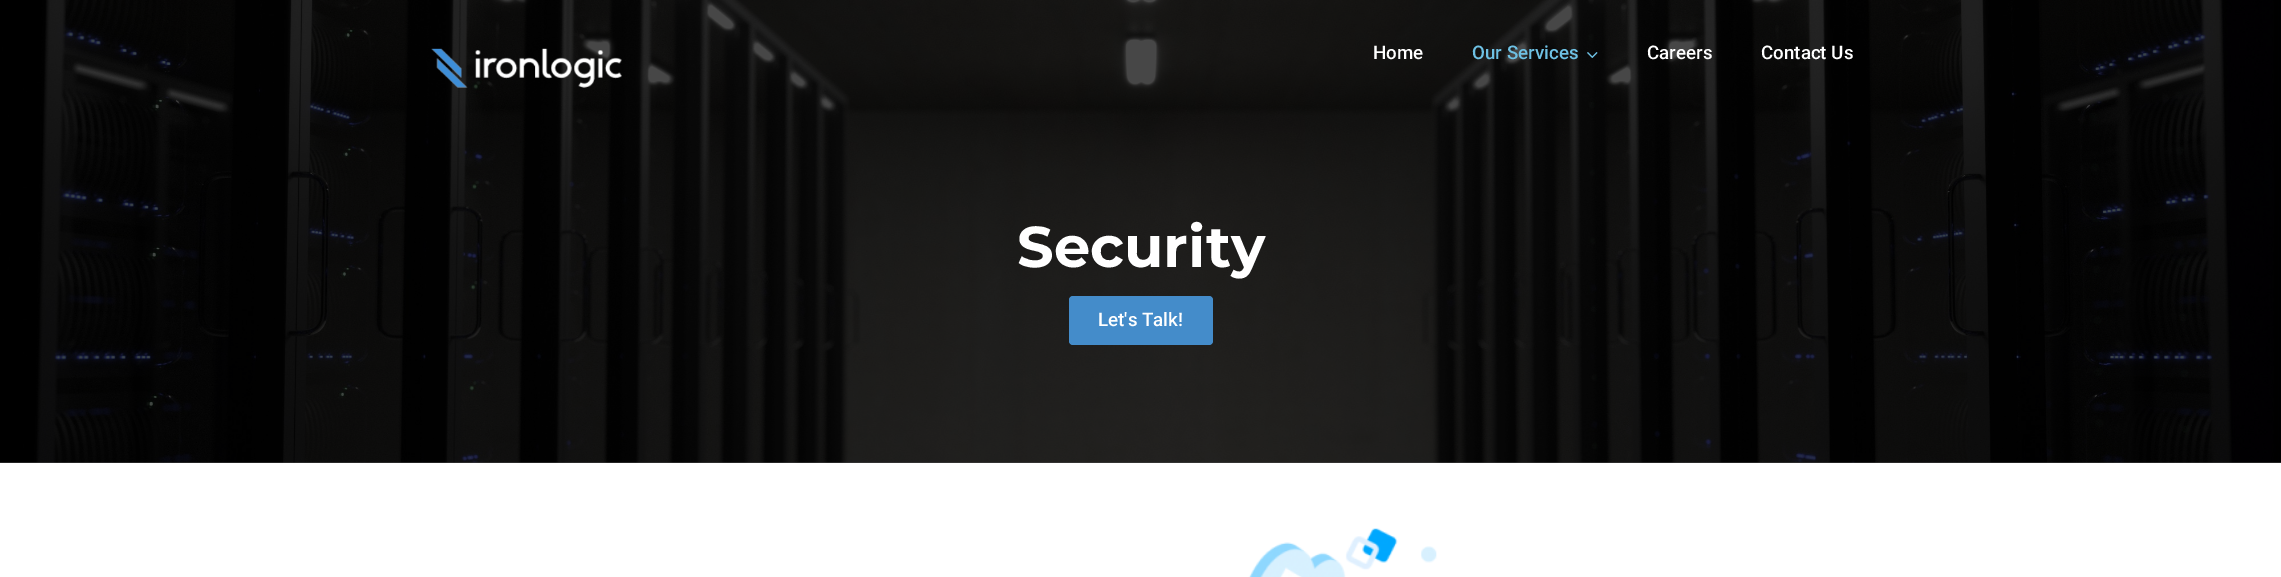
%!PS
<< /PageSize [2281 577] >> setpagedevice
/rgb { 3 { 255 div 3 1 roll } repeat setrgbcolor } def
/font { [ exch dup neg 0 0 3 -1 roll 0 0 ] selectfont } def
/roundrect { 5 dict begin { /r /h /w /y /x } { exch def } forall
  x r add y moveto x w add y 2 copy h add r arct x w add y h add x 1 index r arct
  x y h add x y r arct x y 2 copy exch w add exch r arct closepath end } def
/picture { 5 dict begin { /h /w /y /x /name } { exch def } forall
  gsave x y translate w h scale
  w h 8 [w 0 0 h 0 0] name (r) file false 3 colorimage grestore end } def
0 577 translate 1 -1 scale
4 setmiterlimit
255 255 255 rgb
0 0 2281 577 rectfill
71 71 71 rgb
0 462 2281 1 rectfill
(img/3.rgb) 0 0 2281 463 picture
(img/1.rgb) 431 48 191 40 picture
(img/2.rgb) 1587 52 11 6 picture
68 140 202 rgb
1069 296 144 49 4 roundrect fill
(img/4.rgb) 1248 528 189 49 picture
/Roboto-Medium 18.75 font
255 255 255 rgb
1373 59 moveto (Home) show
110 193 228 rgb
1472 59 moveto (Our Services) show
255 255 255 rgb
1647 59 moveto (Careers) show
1761 59 moveto (Contact Us) show
/Montserrat-Bold 57.5 font
1017 267 moveto (Security) show
/Roboto-Medium 18.75 font
1098 326 moveto (Let's Talk!) show
showpage
